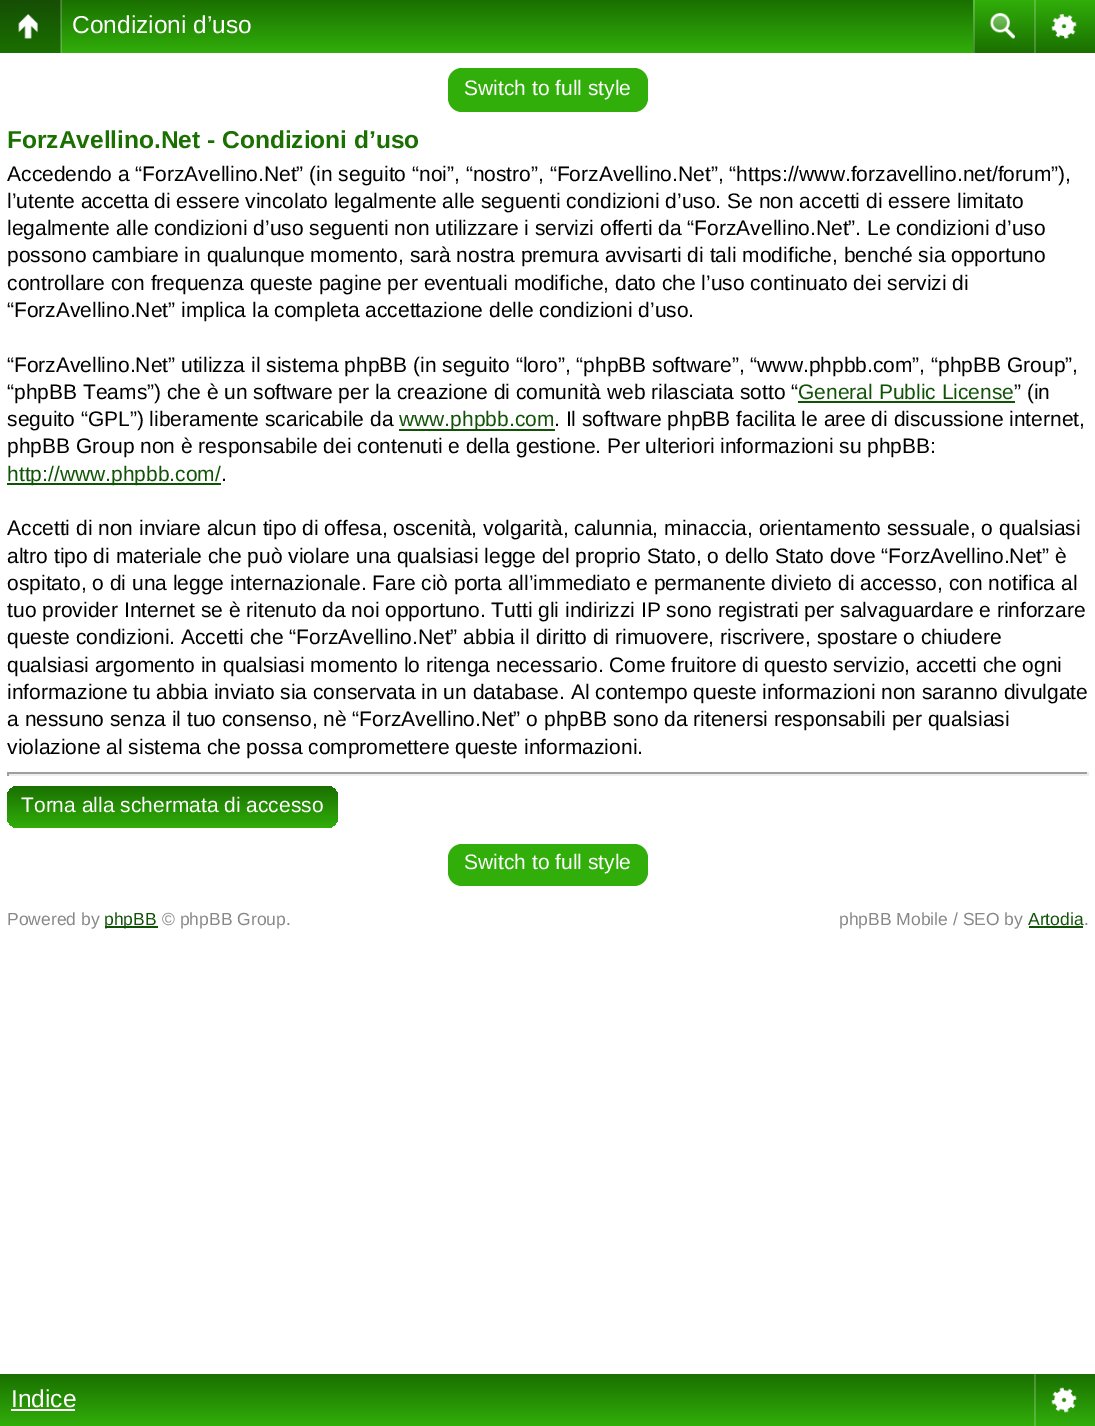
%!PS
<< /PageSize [1095 1426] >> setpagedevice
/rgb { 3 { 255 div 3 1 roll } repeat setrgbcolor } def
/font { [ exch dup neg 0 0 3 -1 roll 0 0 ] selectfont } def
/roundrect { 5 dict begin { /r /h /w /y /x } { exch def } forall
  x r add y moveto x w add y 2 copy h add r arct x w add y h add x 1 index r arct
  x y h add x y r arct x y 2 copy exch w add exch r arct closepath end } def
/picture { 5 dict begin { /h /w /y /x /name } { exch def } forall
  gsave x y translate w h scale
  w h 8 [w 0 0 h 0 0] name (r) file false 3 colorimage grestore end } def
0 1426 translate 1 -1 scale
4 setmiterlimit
255 255 255 rgb
0 0 1095 1426 rectfill
gsave 62 0 moveto 973 0 lineto 973 53 lineto 62 53 lineto closepath clip newpath
<< /ShadingType 2 /ColorSpace /DeviceRGB /Coords [548 0 548 53] /Extend [true true] /Function << /FunctionType 2 /Domain [0 1] /C0 [0.102 0.439 0] /C1 [0.192 0.682 0.039] /N 1 >> >> shfill grestore
gsave 61 0 moveto 62 0 lineto 62 53 lineto 61 53 lineto closepath clip newpath
<< /ShadingType 2 /ColorSpace /DeviceRGB /Coords [548 0 548 53] /Extend [true true] /Function << /FunctionType 2 /Domain [0 1] /C0 [0.282 0.553 0.2] /C1 [0.353 0.745 0.231] /N 1 >> >> shfill grestore
gsave 0 0 moveto 60 0 lineto 60 53 lineto 0 53 lineto closepath clip newpath
<< /ShadingType 2 /ColorSpace /DeviceRGB /Coords [31 0 31 53] /Extend [true true] /Function << /FunctionType 2 /Domain [0 1] /C0 [0.086 0.306 0.02] /C1 [0.102 0.439 0] /N 1 >> >> shfill grestore
gsave 60 0 moveto 61 0 lineto 61 53 lineto 60 53 lineto closepath clip newpath
<< /ShadingType 2 /ColorSpace /DeviceRGB /Coords [31 0 31 53] /Extend [true true] /Function << /FunctionType 2 /Domain [0 1] /C0 [0.271 0.443 0.216] /C1 [0.282 0.553 0.2] /N 1 >> >> shfill grestore
(img/1.rgb) 18 14 20 25 picture
gsave 975 0 moveto 1034 0 lineto 1034 53 lineto 975 53 lineto closepath clip newpath
<< /ShadingType 2 /ColorSpace /DeviceRGB /Coords [1004 0 1004 53] /Extend [true true] /Function << /FunctionType 2 /Domain [0 1] /C0 [0.192 0.682 0.039] /C1 [0.102 0.435 0] /N 1 >> >> shfill grestore
gsave 973 0 moveto 975 0 lineto 975 53 lineto 973 53 lineto closepath clip newpath
<< /ShadingType 2 /ColorSpace /DeviceRGB /Coords [1004 0 1004 53] /Extend [true true] /Function << /FunctionType 2 /Domain [0 1] /C0 [0.353 0.745 0.231] /C1 [0.282 0.549 0.2] /N 1 >> >> shfill grestore
(img/2.rgb) 990 13 25 26 picture
gsave 1036 0 moveto 1095 0 lineto 1095 53 lineto 1036 53 lineto closepath clip newpath
<< /ShadingType 2 /ColorSpace /DeviceRGB /Coords [1065 0 1065 53] /Extend [true true] /Function << /FunctionType 2 /Domain [0 1] /C0 [0.192 0.682 0.039] /C1 [0.102 0.435 0] /N 1 >> >> shfill grestore
gsave 1034 0 moveto 1036 0 lineto 1036 53 lineto 1034 53 lineto closepath clip newpath
<< /ShadingType 2 /ColorSpace /DeviceRGB /Coords [1065 0 1065 53] /Extend [true true] /Function << /FunctionType 2 /Domain [0 1] /C0 [0.353 0.745 0.231] /C1 [0.282 0.549 0.2] /N 1 >> >> shfill grestore
(img/3.rgb) 1051 14 26 25 picture
49 174 10 rgb
448 68 200 44 14 roundrect fill
[
  [798 401 217 2 16 83 7]
  [399 429 156 2 16 83 7]
  [7 483 214 2 16 83 7]
  [7 772 1082 2 159 159 159]
  [1087 772 2 4 238 238 238]
  [7 774 1082 2 238 238 238]
  [7 772 2 4 159 159 159]
] { aload pop rgb rectfill } forall
gsave 7 786 331 42 11 roundrect clip newpath
<< /ShadingType 2 /ColorSpace /DeviceRGB /Coords [172 786 172 828] /Extend [true true] /Function << /FunctionType 2 /Domain [0 1] /C0 [0.102 0.439 0] /C1 [0.192 0.682 0.039] /N 1 >> >> shfill grestore
49 174 10 rgb
448 844 200 42 14 roundrect fill
16 83 7 rgb
105 926 53 2 rectfill
1029 926 54 2 rectfill
gsave 0 1374 moveto 1095 1374 lineto 1095 1426 lineto 0 1426 lineto closepath clip newpath
<< /ShadingType 2 /ColorSpace /DeviceRGB /Coords [548 1374 548 1426] /Extend [true true] /Function << /FunctionType 2 /Domain [0 1] /C0 [0.102 0.439 0] /C1 [0.192 0.682 0.039] /N 1 >> >> shfill grestore
gsave 1034 1374 moveto 1036 1374 lineto 1036 1426 lineto 1034 1426 lineto closepath clip newpath
<< /ShadingType 2 /ColorSpace /DeviceRGB /Coords [548 1374 548 1426] /Extend [true true] /Function << /FunctionType 2 /Domain [0 1] /C0 [0.282 0.553 0.2] /C1 [0.353 0.745 0.231] /N 1 >> >> shfill grestore
255 255 255 rgb
11 1409 64 2 rectfill
(img/4.rgb) 1051 1387 26 26 picture
/LiberationSans-Regular 24.5 font
72 33 moveto (Condizioni d’uso) show
/LiberationSans-Regular 21 font
464 95 moveto (Switch to full style) show
/LiberationSans-Bold 24.5 font
26 112 0 rgb
7 148 moveto (ForzAvellino.Net - Condizioni d’uso) show
/LiberationSans-Regular 21 font
0 0 0 rgb
[
  [(Accedendo a “ForzAvellino.Net” \(in seguito “noi”, “nostro”, “ForzAvellino.Net”, “https://www.forzavellino.net/forum”\),) 7 181]
  [(l’utente accetta di essere vincolato legalmente alle seguenti condizioni d’uso. Se non accetti di essere limitato) 7 208]
  [(legalmente alle condizioni d’uso seguenti non utilizzare i servizi offerti da “ForzAvellino.Net”. Le condizioni d’uso) 7 235]
  [(possono cambiare in qualunque momento, sarà nostra premura avvisarti di tali modifiche, benché sia opportuno) 7 262]
  [(controllare con frequenza queste pagine per eventuali modifiche, dato che l’uso continuato dei servizi di) 7 290]
  [(“ForzAvellino.Net” implica la completa accettazione delle condizioni d’uso.) 7 317]
  [(“ForzAvellino.Net” utilizza il sistema phpBB \(in seguito “loro”, “phpBB software”, “www.phpbb.com”, “phpBB Group”,) 7 372]
  [(“phpBB Teams”\) che è un software per la creazione di comunità web rilasciata sotto “) 7 399]
] { aload pop moveto show } forall
16 83 7 rgb
798 399 moveto (General Public License) show
0 0 0 rgb
1014 399 moveto (” \(in) show
7 426 moveto (seguito “GPL”\) liberamente scaricabile da) show
16 83 7 rgb
399 426 moveto (www.phpbb.com) show
0 0 0 rgb
554 426 moveto (. Il software phpBB facilita le aree di discussione internet,) show
7 453 moveto (phpBB Group non è responsabile dei contenuti e della gestione. Per ulteriori informazioni su phpBB:) show
16 83 7 rgb
7 481 moveto (http://www.phpbb.com/) show
0 0 0 rgb
[
  [(.) 221 481]
  [(Accetti di non inviare alcun tipo di offesa, oscenità, volgarità, calunnia, minaccia, orientamento sessuale, o qualsiasi) 7 535]
  [(altro tipo di materiale che può violare una qualsiasi legge del proprio Stato, o dello Stato dove “ForzAvellino.Net” è) 7 563]
  [(ospitato, o di una legge internazionale. Fare ciò porta all’immediato e permanente divieto di accesso, con notifica al) 7 590]
  [(tuo provider Internet se è ritenuto da noi opportuno. Tutti gli indirizzi IP sono registrati per salvaguardare e rinforzare) 7 617]
  [(queste condizioni. Accetti che “ForzAvellino.Net” abbia il diritto di rimuovere, riscrivere, spostare o chiudere) 7 644]
  [(qualsiasi argomento in qualsiasi momento lo ritenga necessario. Come fruitore di questo servizio, accetti che ogni) 7 672]
  [(informazione tu abbia inviato sia conservata in un database. Al contempo queste informazioni non saranno divulgate) 7 699]
  [(a nessuno senza il tuo consenso, nè “ForzAvellino.Net” o phpBB sono da ritenersi responsabili per qualsiasi) 7 726]
  [(violazione al sistema che possa compromettere queste informazioni.) 7 754]
] { aload pop moveto show } forall
255 255 255 rgb
21 812 moveto (Torna alla schermata di accesso) show
464 869 moveto (Switch to full style) show
/LiberationSans-Regular 17.5 font
136 136 136 rgb
7 925 moveto (Powered by) show
16 83 7 rgb
104 925 moveto (phpBB) show
136 136 136 rgb
162 925 moveto (© phpBB Group.) show
839 925 moveto (phpBB Mobile / SEO by) show
16 83 7 rgb
1028 925 moveto (Artodia) show
136 136 136 rgb
1084 925 moveto (.) show
/LiberationSans-Regular 24.5 font
255 255 255 rgb
11 1407 moveto (Indice) show
showpage
